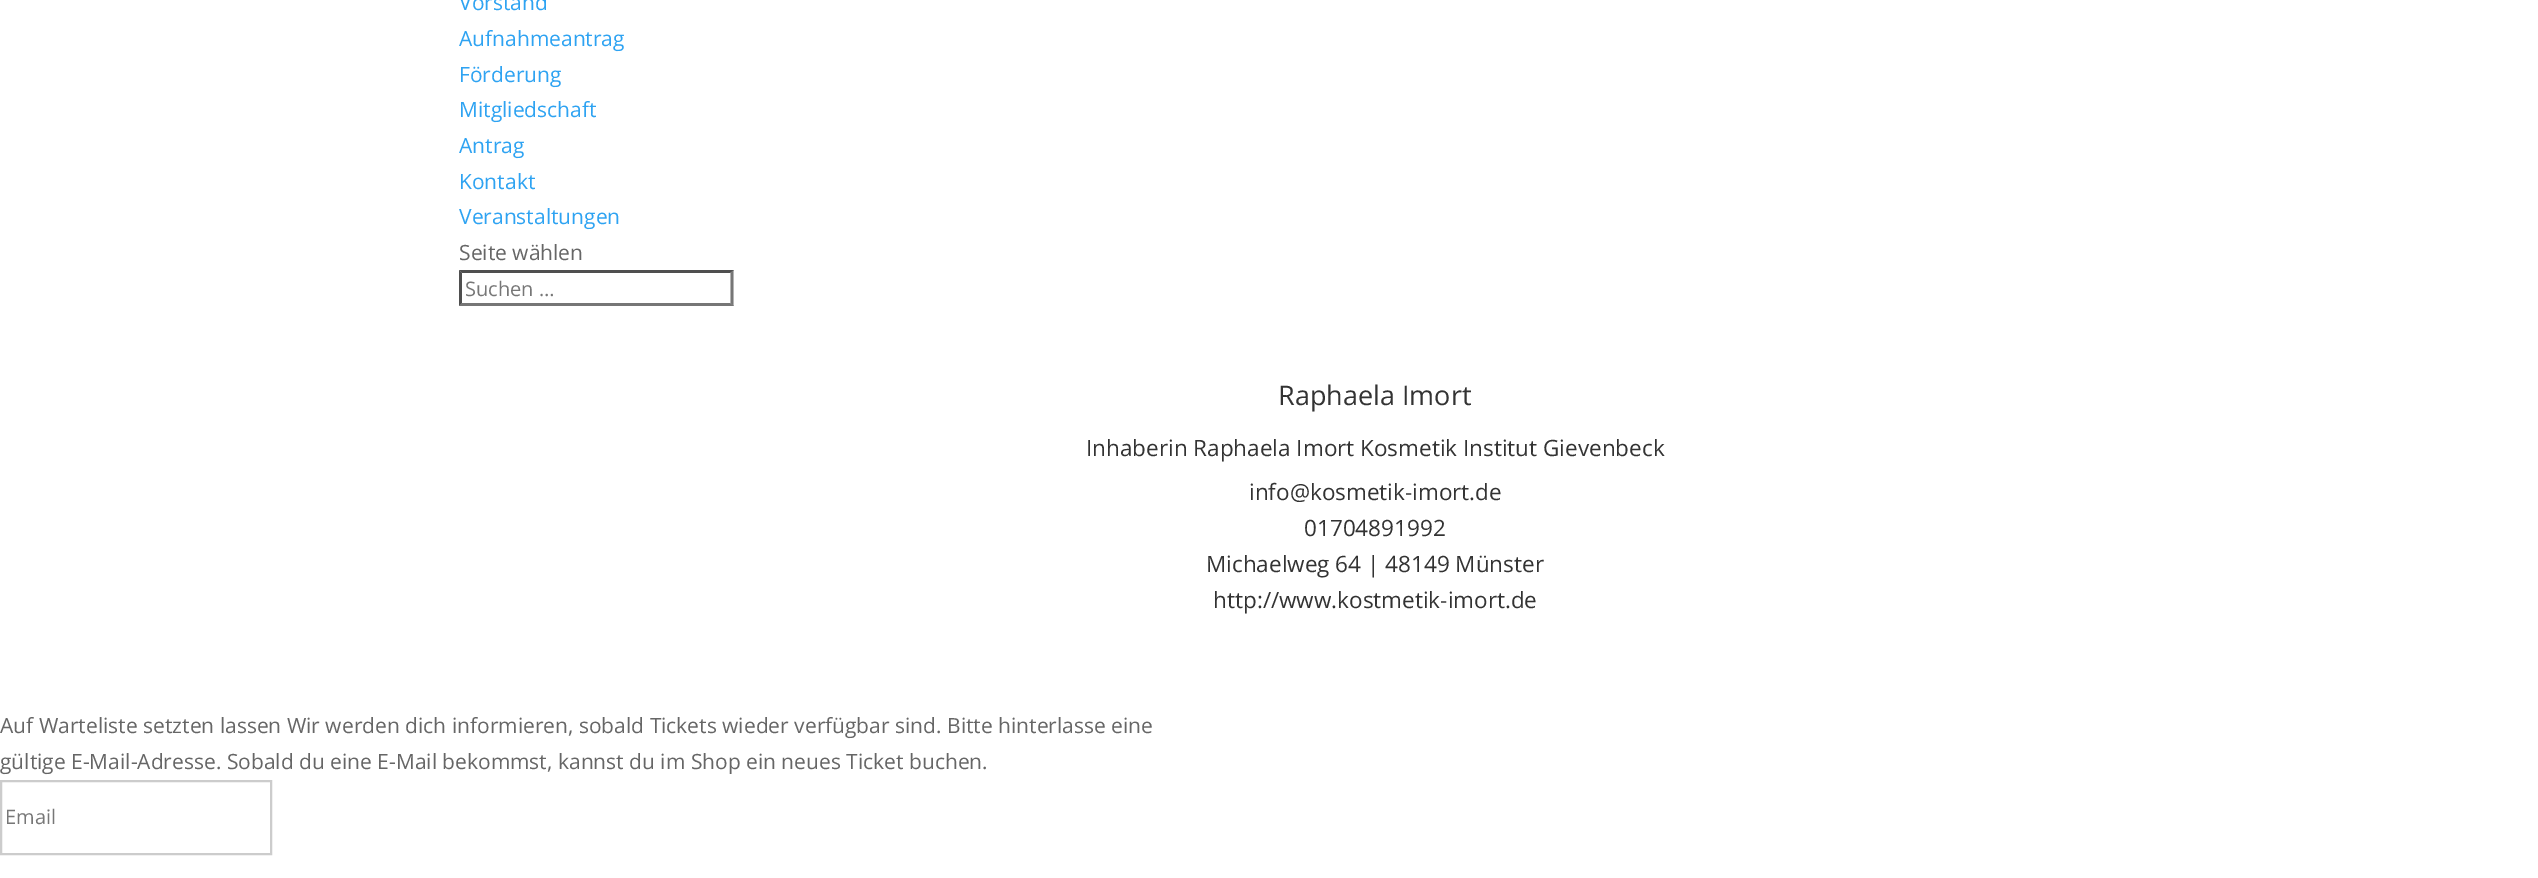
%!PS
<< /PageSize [2538 878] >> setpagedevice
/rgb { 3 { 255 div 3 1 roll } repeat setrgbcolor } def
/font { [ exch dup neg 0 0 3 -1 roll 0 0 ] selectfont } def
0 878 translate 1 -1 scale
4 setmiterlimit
255 255 255 rgb
0 0 2538 878 rectfill
79 79 79 rgb
459 270 moveto 734 270 lineto 730 273 lineto 462 273 lineto closepath fill
118 118 118 rgb
733.5 270 moveto 733.5 306 lineto 730.5 303 lineto 730.5 273 lineto closepath fill
734 306 moveto 459 306 lineto 462 303 lineto 730 303 lineto closepath fill
79 79 79 rgb
459 306 moveto 459 270 lineto 462 273 lineto 462 303 lineto closepath fill
204 204 204 rgb
2 setlinewidth
1 781 270 73 rectstroke
/OpenSans-Regular 21 font
46 163 242 rgb
[
  [(Vorstand) 459 10]
  [(Aufnahmeantrag) 459 46]
  [(Förderung) 459 82]
  [(Mitgliedschaft) 459 117]
  [(Antrag) 459 153]
  [(Kontakt) 459 189]
  [(Veranstaltungen) 459 224]
] { aload pop moveto show } forall
102 102 102 rgb
459 260 moveto (Seite wählen) show
/OpenSans-Regular 20 font
119 119 119 rgb
465 296 moveto (Suchen …) show
/OpenSans-Regular 27 font
51 51 51 rgb
1278 405 moveto (Raphaela Imort) show
/OpenSans-Regular 22.5 font
[
  [(Inhaberin Raphaela Imort Kosmetik Institut Gievenbeck) 1086 456]
  [(info@kosmetik-imort.de) 1249 500]
  [(01704891992) 1304 536]
  [(Michaelweg 64 | 48149 Münster) 1206 572]
  [(http://www.kostmetik-imort.de) 1213 608]
] { aload pop moveto show } forall
/OpenSans-Regular 21 font
102 102 102 rgb
0 733 moveto (Auf Warteliste setzten lassen Wir werden dich informieren, sobald Tickets wieder verfügbar sind. Bitte hinterlasse eine) show
0 769 moveto (gültige E-Mail-Adresse. Sobald du eine E-Mail bekommst, kannst du im Shop ein neues Ticket buchen.) show
/OpenSans-Regular 20 font
119 119 119 rgb
5 824 moveto (Email) show
showpage
